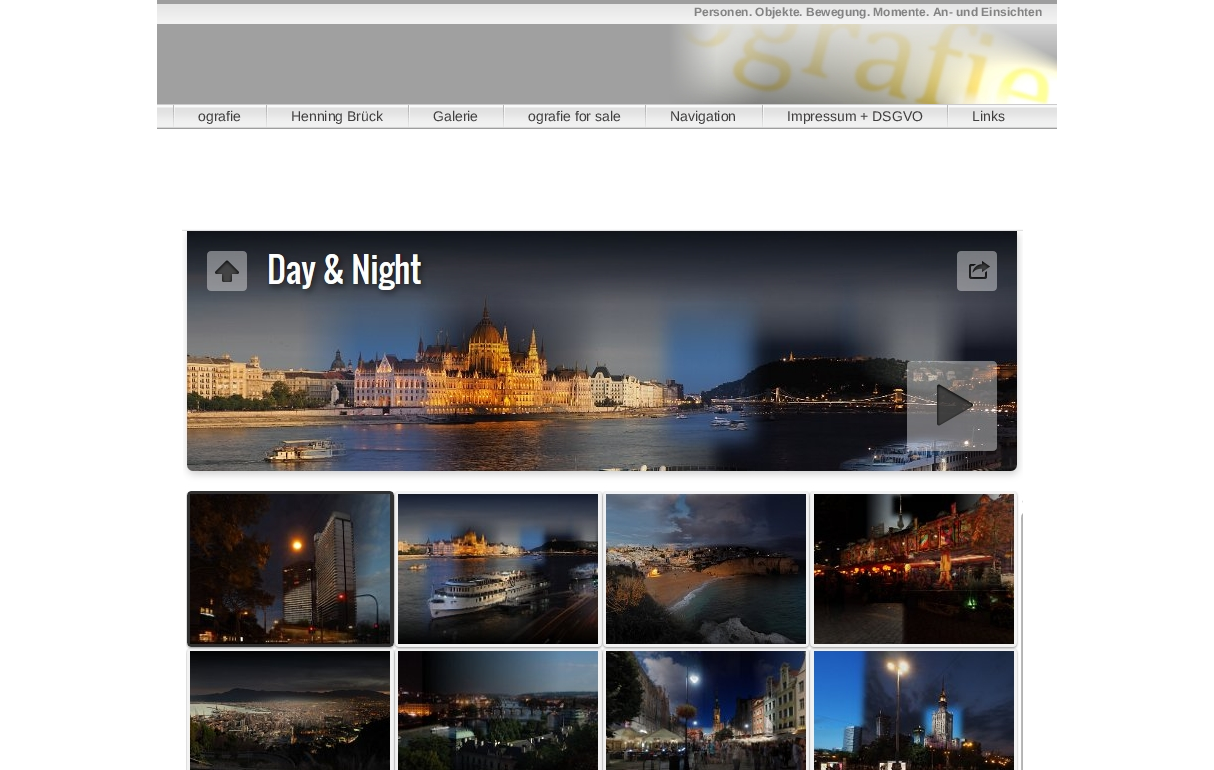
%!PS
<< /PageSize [1214 770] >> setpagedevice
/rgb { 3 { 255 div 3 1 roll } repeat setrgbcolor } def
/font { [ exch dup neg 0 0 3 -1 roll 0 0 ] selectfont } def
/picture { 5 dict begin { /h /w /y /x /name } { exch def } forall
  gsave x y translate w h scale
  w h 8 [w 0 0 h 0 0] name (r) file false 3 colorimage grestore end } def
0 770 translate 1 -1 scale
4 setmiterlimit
255 255 255 rgb
0 0 1214 770 rectfill
(img/1.rgb) 157 0 900 24 picture
(img/2.rgb) 157 24 900 80 picture
(img/3.rgb) 157 104 900 25 picture
(img/4.rgb) 173 105 2 22 picture
(img/4.rgb) 266 105 2 22 picture
(img/5.rgb) 408 105 2 22 picture
(img/5.rgb) 503 105 2 22 picture
(img/4.rgb) 645 105 2 22 picture
(img/5.rgb) 762 105 2 22 picture
(img/4.rgb) 947 105 2 22 picture
(img/6.rgb) 182 229 841 72 picture
(img/7.rgb) 183 301 840 469 picture
/LiberationSans-Bold 12 font
131 131 131 rgb
694 16 moveto (Personen. Objekte. Bewegung. Momente. An- und Einsichten) show
/LiberationSans-Regular 14 font
63 62 62 rgb
[
  [(ografie) 198 121]
  [(Henning Brück) 291 121]
  [(Galerie) 433 121]
  [(ografie for sale) 528 121]
  [(Navigation) 670 121]
  [(Impressum + DSGVO) 787 121]
  [(Links) 972 121]
] { aload pop moveto show } forall
showpage
